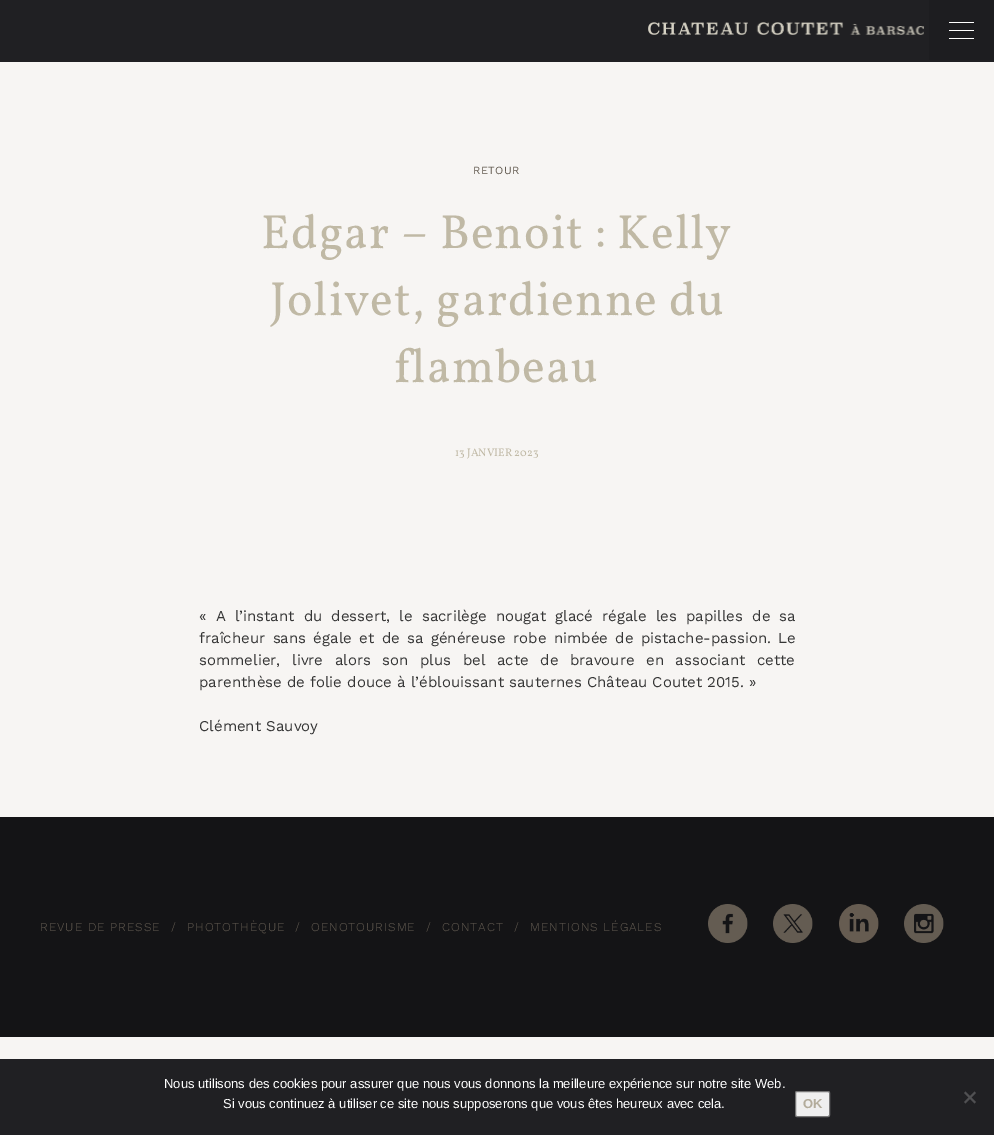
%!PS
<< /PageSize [994 1135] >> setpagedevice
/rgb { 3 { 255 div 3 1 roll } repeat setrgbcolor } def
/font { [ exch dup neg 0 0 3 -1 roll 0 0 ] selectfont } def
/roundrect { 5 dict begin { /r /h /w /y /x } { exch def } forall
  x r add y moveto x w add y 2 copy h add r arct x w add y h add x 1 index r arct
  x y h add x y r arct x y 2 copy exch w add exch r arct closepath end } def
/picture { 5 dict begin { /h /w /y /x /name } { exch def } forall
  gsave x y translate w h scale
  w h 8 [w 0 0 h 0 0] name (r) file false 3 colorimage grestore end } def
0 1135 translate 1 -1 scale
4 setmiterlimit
247 245 243 rgb
0 0 994 1135 rectfill
32 32 35 rgb
0 0 929 60 rectfill
(img/1.rgb) 648 22 276 13 picture
[
  [929 0 65 60 29 29 32]
  [949 30 25 1 255 255 255]
  [949 22 25 1 255 255 255]
  [949 38 25 1 255 255 255]
  [0 60 994 2 32 32 35]
  [0 817 994 220 20 20 22]
] { aload pop rgb rectfill } forall
(img/2.rgb) 708 904 40 39 picture
(img/3.rgb) 773 904 40 39 picture
(img/4.rgb) 839 904 40 39 picture
(img/5.rgb) 904 904 40 39 picture
32 32 35 rgb
0 1059 994 76 rectfill
239 239 239 rgb
795.5 1091.5 34 25 1.5 roundrect gsave fill grestore
118 118 118 rgb
stroke
80 80 82 rgb
974.5 1091.5 moveto 976 1093 lineto 965.5 1103.5 lineto 964 1102 lineto closepath fill
964 1093 moveto 965.5 1091.5 lineto 976 1102 lineto 974.5 1103.5 lineto closepath fill
/WorkSans-Regular 11 font
100 92 82 rgb
473 174 moveto 0.5 0 (RETOUR) ashow
/Vollkorn-Regular 48 font
192 185 165 rgb
261 248 moveto 1 0 (Edgar – Benoit : Kelly) ashow
270 315 moveto 1 0 (Jolivet, gardienne du) ashow
394 382 moveto 1 0 (flambeau) ashow
/Vollkorn-Regular 11 font
455 456 moveto (13 JANVIER 2023) show
/WorkSans-Regular 15 font
54 54 54 rgb
199 621 moveto 4 0 32 (« A l’instant du dessert, le sacrilège nougat glacé régale les papilles de sa) widthshow
199 643 moveto 2.25 0 32 (fraîcheur sans égale et de sa généreuse robe nimbée de pistache-passion. Le) widthshow
199 665 moveto 6.4 0 32 (sommelier, livre alors son plus bel acte de bravoure en associant cette) widthshow
199 687 moveto (parenthèse de folie douce à l’éblouissant sauternes Château Coutet 2015. ») show
199 731 moveto (Clément Sauvoy) show
/WorkSans-Light 12 font
100 92 82 rgb
40 931 moveto 1 0 (REVUE DE PRESSE) ashow
171 931 moveto 1 0 (/) ashow
187 931 moveto 1 0 (PHOTOTHÈQUE) ashow
295 931 moveto 1 0 (/) ashow
311 931 moveto 1 0 (OENOTOURISME) ashow
426 931 moveto 1 0 (/) ashow
442 931 moveto 1 0 (CONTACT) ashow
514 931 moveto 1 0 (/) ashow
530 931 moveto 1 0 (MENTIONS LÉGALES) ashow
/LiberationSans-Regular 13 font
255 255 255 rgb
164 1088 moveto (Nous utilisons des cookies pour assurer que nous vous donnons la meilleure expérience sur notre site Web.) show
223 1108 moveto (Si vous continuez à utiliser ce site nous supposerons que vous êtes heureux avec cela.) show
/LiberationSans-Bold 13 font
179 172 155 rgb
803 1108 moveto (OK) show
showpage
